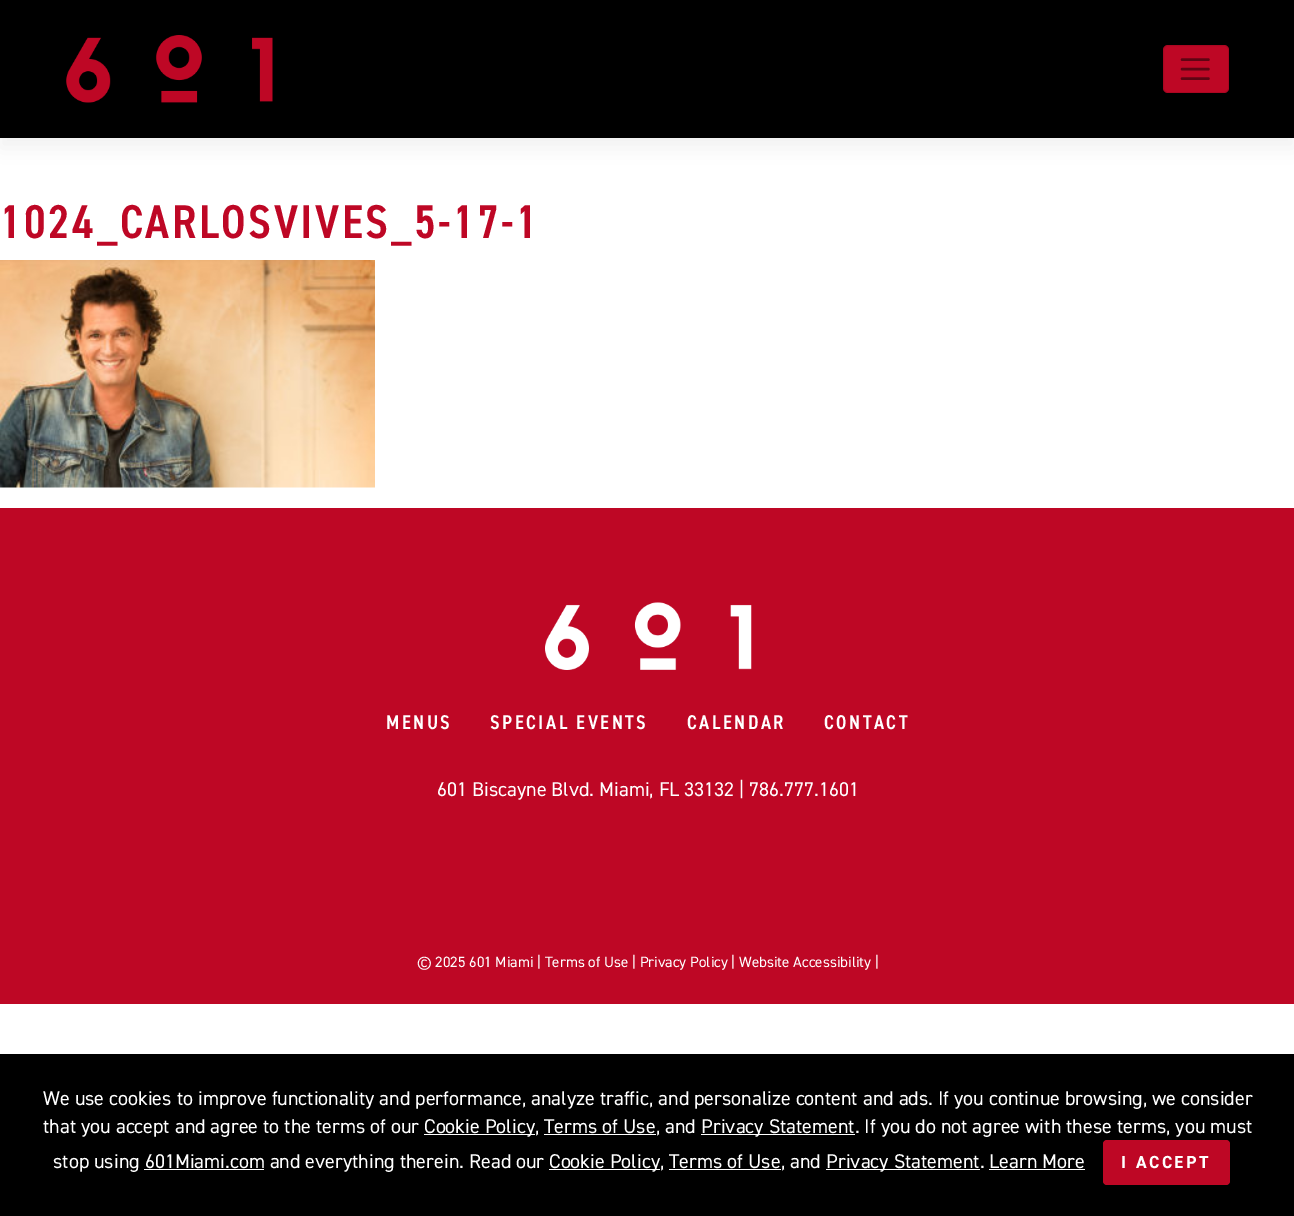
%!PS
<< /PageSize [1294 1216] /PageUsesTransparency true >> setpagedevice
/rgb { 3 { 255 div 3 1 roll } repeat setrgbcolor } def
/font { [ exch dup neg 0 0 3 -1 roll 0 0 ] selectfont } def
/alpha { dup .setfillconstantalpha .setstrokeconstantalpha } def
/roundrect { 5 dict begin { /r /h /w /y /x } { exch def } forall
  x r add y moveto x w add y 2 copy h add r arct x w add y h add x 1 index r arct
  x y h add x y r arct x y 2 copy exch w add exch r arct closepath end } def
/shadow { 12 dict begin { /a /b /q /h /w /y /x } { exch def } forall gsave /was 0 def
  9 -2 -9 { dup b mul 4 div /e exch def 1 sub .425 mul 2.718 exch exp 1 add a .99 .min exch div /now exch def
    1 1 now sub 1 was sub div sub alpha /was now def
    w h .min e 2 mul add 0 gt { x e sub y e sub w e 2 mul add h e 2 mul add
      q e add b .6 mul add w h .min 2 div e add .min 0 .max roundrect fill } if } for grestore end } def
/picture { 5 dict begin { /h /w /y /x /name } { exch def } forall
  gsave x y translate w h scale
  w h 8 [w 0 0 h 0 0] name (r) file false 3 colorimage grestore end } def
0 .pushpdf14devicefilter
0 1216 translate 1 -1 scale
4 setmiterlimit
255 255 255 rgb
0 0 1294 1216 rectfill
0 0 0 rgb
0 10 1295 138 0 9.5 0.05 shadow
0 0 1294 138 rectfill
(img/1.rgb) 66 35 207 68 picture
190 7 37 rgb
1163 45 66 48 5 roundrect fill
0.1 alpha
0 0 0 rgb
1163.5 45.5 65 47 4.5 roundrect stroke
1 alpha
95 4 19 rgb
2.4 setlinewidth
1 setlinecap
1182 59.5 moveto 1208.5 59.5 lineto 1182 69 moveto 1208.5 69 lineto 1182 78.5 moveto 1208.5 78.5 lineto stroke
(img/2.rgb) 0 260 375 228 picture
190 7 37 rgb
0 508 1294 496 rectfill
(img/3.rgb) 545 602 207 68 picture
[
  [0 1054 1294 162 0 0 0]
  [424 1134 111 1 255 255 255]
  [701 1134 154 1 255 255 255]
  [544 1134 112 1 255 255 255]
  [549 1169 111 1 255 255 255]
  [826 1169 154 1 255 255 255]
] { aload pop rgb rectfill } forall
190 7 37 rgb
1103 1140 127 45 4 roundrect fill
[
  [144 1169 120 1 255 255 255]
  [669 1169 112 1 255 255 255]
  [989 1169 96 1 255 255 255]
] { aload pop rgb rectfill } forall
/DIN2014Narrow-SemiBold 47.5 font
190 7 37 rgb
0 238 moveto 2.5 0 (1024_CARLOSVIVES_5-17-1) ashow
/DIN2014Narrow-SemiBold 20 font
255 255 255 rgb
386 729 moveto 2.5 0 (MENUS) ashow
490 729 moveto 2.5 0 (SPECIAL EVENTS) ashow
687 729 moveto 2.5 0 (CALENDAR) ashow
824 729 moveto 2.5 0 (CONTACT) ashow
/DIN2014-Regular 20 font
437 796 moveto (601 Biscayne Blvd. Miami, FL 33132 | 786.777.1601) show
/DIN2014-Regular 15 font
417 967 moveto (© 2025 601 Miami | Terms of Use | Privacy Policy | Website Accessibility |) show
/DIN2014-Regular 20 font
[
  [(We use cookies to improve functionality and performance, analyze traffic, and personalize content and ads. If you continue browsing, we consider) 43 1105]
  [(that you accept and agree to the terms of our) 43 1133]
  [(Cookie Policy, Terms of Use, and) 424 1133]
  [(Privacy Statement. If you do not agree with these terms, you must) 701 1133]
  [(stop using 601Miami.com and everything therein. Read our) 53 1168]
  [(Cookie Policy, Terms of Use, and) 549 1168]
  [(Privacy Statement. Learn More) 826 1168]
] { aload pop moveto show } forall
/DIN2014-Bold 17.5 font
1121 1168 moveto 2.5 0 (I ACCEPT) ashow
.poppdf14devicefilter showpage
